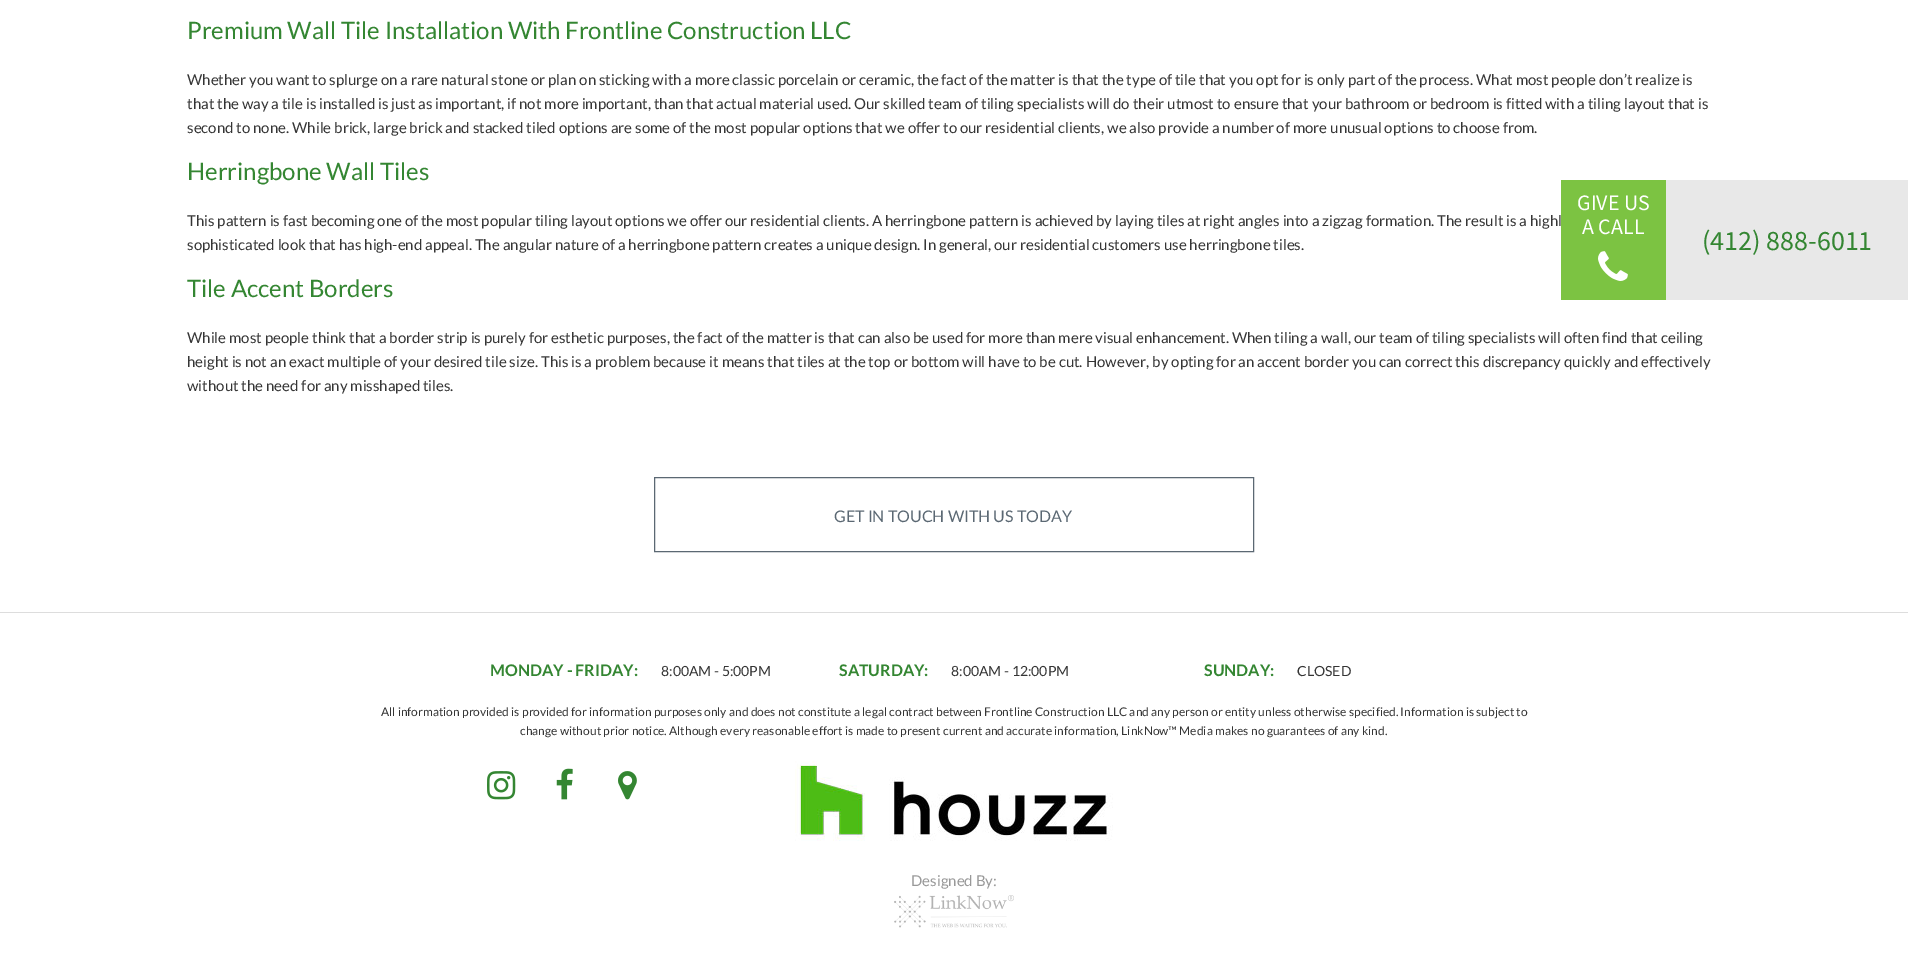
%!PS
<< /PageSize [1908 963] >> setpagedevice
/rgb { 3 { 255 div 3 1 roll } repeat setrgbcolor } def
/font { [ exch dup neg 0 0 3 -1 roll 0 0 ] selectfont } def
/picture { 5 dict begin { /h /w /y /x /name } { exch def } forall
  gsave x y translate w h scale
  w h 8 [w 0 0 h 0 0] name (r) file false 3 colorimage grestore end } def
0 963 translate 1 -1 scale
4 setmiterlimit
255 255 255 rgb
0 0 1908 963 rectfill
91 104 115 rgb
654.5 477.5 599 74 rectstroke
221 221 221 rgb
0 612 1908 1 rectfill
124 195 66 rgb
1561 180 105 120 rectfill
(img/1.rgb) 1598 251 30 30 picture
232 232 232 rgb
1666 180 242 120 rectfill
(img/2.rgb) 487 771 29 29 picture
(img/3.rgb) 556 768 17 32 picture
(img/4.rgb) 618 771 19 29 picture
(img/5.rgb) 795 761 318 80 picture
(img/6.rgb) 894 895 120 33 picture
/Lato-Regular 24 font
52 134 50 rgb
187 39 moveto (Premium Wall Tile Installation With Frontline Construction LLC) show
/Lato-Regular 15 font
53 53 53 rgb
[
  [(Whether you want to splurge on a rare natural stone or plan on sticking with a more classic porcelain or ceramic, the fact of the matter is that the type of tile that you opt for is only part of the process. What most people don’t realize is) 187 85]
  [(that the way a tile is installed is just as important, if not more important, than that actual material used. Our skilled team of tiling specialists will do their utmost to ensure that your bathroom or bedroom is fitted with a tiling layout that is) 187 109]
  [(second to none. While brick, large brick and stacked tiled options are some of the most popular options that we offer to our residential clients, we also provide a number of more unusual options to choose from.) 187 133]
] { aload pop moveto show } forall
/Lato-Regular 24 font
52 134 50 rgb
187 180 moveto (Herringbone Wall Tiles) show
/Lato-Regular 15 font
53 53 53 rgb
187 226 moveto (This pattern is fast becoming one of the most popular tiling layout options we offer our residential clients. A herringbone pattern is achieved by laying tiles at right angles into a zigzag formation. The result is a highl) show
187 250 moveto (sophisticated look that has high-end appeal. The angular nature of a herringbone pattern creates a unique design. In general, our residential customers use herringbone tiles.) show
/Lato-Regular 24 font
52 134 50 rgb
187 297 moveto (Tile Accent Borders) show
/Lato-Regular 15 font
53 53 53 rgb
[
  [(While most people think that a border strip is purely for esthetic purposes, the fact of the matter is that can also be used for more than mere visual enhancement. When tiling a wall, our team of tiling specialists will often find that ceiling) 187 343]
  [(height is not an exact multiple of your desired tile size. This is a problem because it means that tiles at the top or bottom will have to be cut. However, by opting for an accent border you can correct this discrepancy quickly and effectively) 187 367]
  [(without the need for any misshaped tiles.) 187 391]
] { aload pop moveto show } forall
/Lato-Regular 16 font
91 104 115 rgb
834 522 moveto (GET IN TOUCH WITH US TODAY) show
/SourceSansPro-Regular 22 font
255 255 255 rgb
1577 210 moveto (GIVE US) show
1582 234 moveto (A CALL) show
/SourceSansPro-Regular 28 font
52 134 50 rgb
1702 250 moveto (\(412\) 888-6011) show
/Lato-Bold 16 font
490 676 moveto (MONDAY - FRIDAY:) show
/Lato-Regular 14 font
53 53 53 rgb
661 676 moveto (8:00AM - 5:00PM) show
/Lato-Bold 16 font
52 134 50 rgb
839 676 moveto (SATURDAY:) show
/Lato-Regular 14 font
53 53 53 rgb
951 676 moveto (8:00AM - 12:00PM) show
/Lato-Bold 16 font
52 134 50 rgb
1204 676 moveto (SUNDAY:) show
/Lato-Regular 14 font
53 53 53 rgb
1297 676 moveto (CLOSED) show
/Lato-Regular 12 font
381 716 moveto (All information provided is provided for information purposes only and does not constitute a legal contract between Frontline Construction LLC and any person or entity unless otherwise specified. Information is subject to) show
520 735 moveto (change without prior notice. Although every reasonable effort is made to present current and accurate information, LinkNow™ Media makes no guarantees of any kind.) show
/Lato-Regular 15 font
153 153 153 rgb
911 886 moveto (Designed By:) show
showpage
